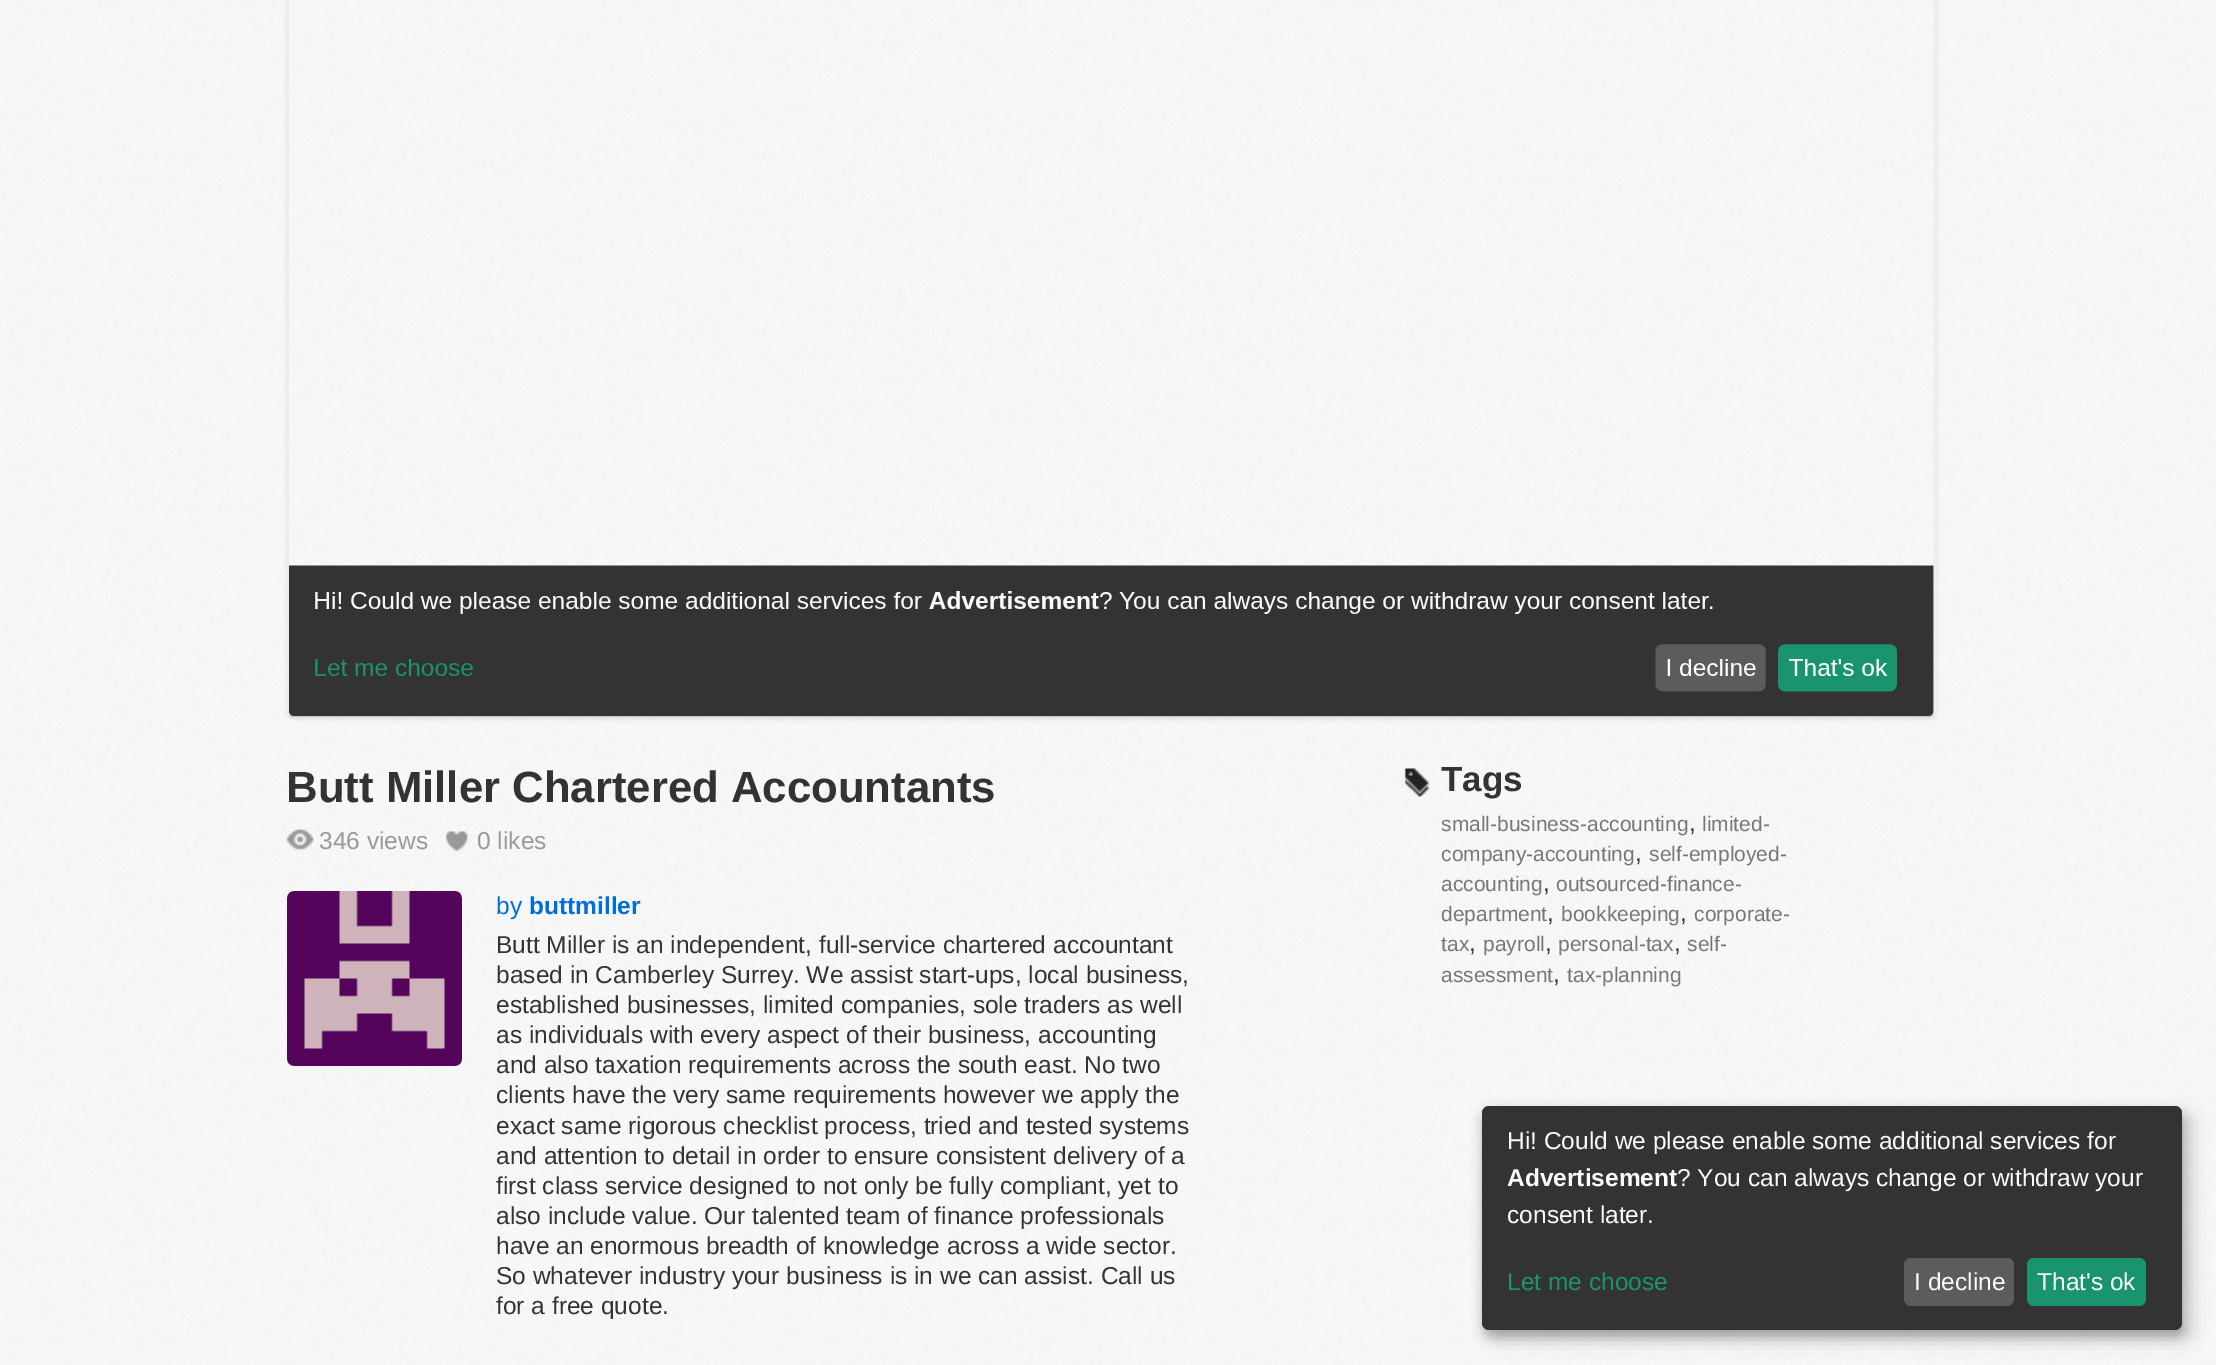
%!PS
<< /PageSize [2216 1365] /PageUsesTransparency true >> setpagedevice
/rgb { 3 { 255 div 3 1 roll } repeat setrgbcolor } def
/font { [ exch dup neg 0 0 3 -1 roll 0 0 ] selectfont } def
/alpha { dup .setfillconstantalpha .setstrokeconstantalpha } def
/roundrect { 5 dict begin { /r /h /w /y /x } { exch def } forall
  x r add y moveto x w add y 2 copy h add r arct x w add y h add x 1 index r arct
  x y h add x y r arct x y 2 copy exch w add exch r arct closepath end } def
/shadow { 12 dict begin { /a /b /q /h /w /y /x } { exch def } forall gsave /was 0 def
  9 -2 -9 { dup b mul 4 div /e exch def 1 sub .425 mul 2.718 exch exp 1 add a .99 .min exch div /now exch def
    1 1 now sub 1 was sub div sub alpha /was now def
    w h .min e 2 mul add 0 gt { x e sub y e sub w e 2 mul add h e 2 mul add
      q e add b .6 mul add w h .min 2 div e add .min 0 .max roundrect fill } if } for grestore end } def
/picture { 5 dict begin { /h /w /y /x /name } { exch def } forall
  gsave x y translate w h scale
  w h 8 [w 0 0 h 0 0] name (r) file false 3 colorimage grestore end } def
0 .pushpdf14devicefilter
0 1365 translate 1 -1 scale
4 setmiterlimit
255 255 255 rgb
0 0 2216 1365 rectfill
(img/1.rgb) 0 0 2216 1365 picture
gsave
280 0 moveto 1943 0 lineto 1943 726 lineto 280 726 lineto closepath 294 -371 moveto 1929 -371 lineto 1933 -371 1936 -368 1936 -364 curveto 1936 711 lineto 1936 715 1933 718 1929 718 curveto 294 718 lineto 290 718 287 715 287 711 curveto 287 -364 lineto 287 -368 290 -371 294 -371 curveto closepath eoclip newpath
0 0 0 rgb
287 -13 1649 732 7 2 0.1 shadow
grestore
204 204 204 rgb
1.8 setlinewidth
1933 715 moveto 1931.5 716 1930 716.5 1928.5 716.5 curveto 294 716.5 lineto 292.5 716.5 291 716 289.5 715 curveto stroke
236 236 236 rgb
289.5 715 moveto 288.5 713.5 288 712 288 710.5 curveto 288 -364 lineto 288 -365.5 288.5 -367 289.5 -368.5 curveto 291 -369.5 292.5 -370 294 -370 curveto 1928.5 -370 lineto 1930 -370 1931.5 -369.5 1933 -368.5 curveto 1934 -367 1934.5 -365.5 1934.5 -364 curveto 1934.5 710.5 lineto 1934.5 712 1934 713.5 1933 715 curveto stroke
(img/2.rgb) 289 565 1645 151 picture
(img/3.rgb) 286 829 28 21 picture
(img/4.rgb) 445 831 23 21 picture
(img/5.rgb) 287 891 175 175 picture
(img/6.rgb) 1404 768 26 29 picture
0 0 0 rgb
1491 1115 700 224 7 9 0.19 shadow
1482 1113 700 224 7 5 0.2 shadow
51 51 51 rgb
1482 1106 700 224 7 roundrect fill
92 92 92 rgb
1904 1258 110 48 7 roundrect fill
26 147 111 rgb
2027 1258 119 48 7 roundrect fill
/LiberationSans-Bold 43.75 font
51 51 51 rgb
286 802 moveto (Butt Miller Chartered Accountants) show
/LiberationSans-Regular 24.5 font
153 153 153 rgb
319 849 moveto (346 views) show
477 849 moveto (0 likes) show
0 108 222 rgb
496 914 moveto (by) show
/LiberationSans-Bold 24.5 font
529 914 moveto (buttmiller) show
/LiberationSans-Regular 24.5 font
51 51 51 rgb
[
  [(Butt Miller is an independent, full-service chartered accountant) 496 953]
  [(based in Camberley Surrey. We assist start-ups, local business,) 496 983]
  [(established businesses, limited companies, sole traders as well) 496 1013]
  [(as individuals with every aspect of their business, accounting) 496 1043]
  [(and also taxation requirements across the south east. No two) 496 1073]
  [(clients have the very same requirements however we apply the) 496 1103]
  [(exact same rigorous checklist process, tried and tested systems) 496 1134]
  [(and attention to detail in order to ensure consistent delivery of a) 496 1164]
  [(first class service designed to not only be fully compliant, yet to) 496 1194]
  [(also include value. Our talented team of finance professionals) 496 1224]
  [(have an enormous breadth of knowledge across a wide sector.) 496 1254]
  [(So whatever industry your business is in we can assist. Call us) 496 1284]
  [(for a free quote.) 496 1314]
] { aload pop moveto show } forall
/LiberationSans-Bold 35 font
1441 791 moveto (Tags) show
/LiberationSans-Regular 21 font
119 119 119 rgb
1441 831 moveto (small-business-accounting) show
/LiberationSans-Regular 24.5 font
51 51 51 rgb
1689 831 moveto (,) show
/LiberationSans-Regular 21 font
119 119 119 rgb
1702 831 moveto (limited-) show
1441 861 moveto (company-accounting) show
/LiberationSans-Regular 24.5 font
51 51 51 rgb
1635 861 moveto (,) show
/LiberationSans-Regular 21 font
119 119 119 rgb
1649 861 moveto (self-employed-) show
1441 891 moveto (accounting) show
/LiberationSans-Regular 24.5 font
51 51 51 rgb
1543 891 moveto (,) show
/LiberationSans-Regular 21 font
119 119 119 rgb
1556 891 moveto (outsourced-finance-) show
1441 921 moveto (department) show
/LiberationSans-Regular 24.5 font
51 51 51 rgb
1547 921 moveto (,) show
/LiberationSans-Regular 21 font
119 119 119 rgb
1561 921 moveto (bookkeeping) show
/LiberationSans-Regular 24.5 font
51 51 51 rgb
1680 921 moveto (,) show
/LiberationSans-Regular 21 font
119 119 119 rgb
1694 921 moveto (corporate-) show
1441 951 moveto (tax) show
/LiberationSans-Regular 24.5 font
51 51 51 rgb
1469 951 moveto (,) show
/LiberationSans-Regular 21 font
119 119 119 rgb
1483 951 moveto (payroll) show
/LiberationSans-Regular 24.5 font
51 51 51 rgb
1545 951 moveto (,) show
/LiberationSans-Regular 21 font
119 119 119 rgb
1558 951 moveto (personal-tax) show
/LiberationSans-Regular 24.5 font
51 51 51 rgb
1674 951 moveto (,) show
/LiberationSans-Regular 21 font
119 119 119 rgb
1687 951 moveto (self-) show
1441 982 moveto (assessment) show
/LiberationSans-Regular 24.5 font
51 51 51 rgb
1553 982 moveto (,) show
/LiberationSans-Regular 21 font
119 119 119 rgb
1567 982 moveto (tax-planning) show
/LiberationSans-Regular 24.5 font
250 250 250 rgb
1507 1149 moveto (Hi! Could we please enable some additional services for) show
/LiberationSans-Bold 24.5 font
1507 1186 moveto (Advertisement) show
/LiberationSans-Regular 24.5 font
1677 1186 moveto (? You can always change or withdraw your) show
1507 1223 moveto (consent later.) show
26 147 111 rgb
1507 1290 moveto (Let me choose) show
250 250 250 rgb
1914 1290 moveto (I decline) show
2037 1290 moveto (That's ok) show
.poppdf14devicefilter showpage
